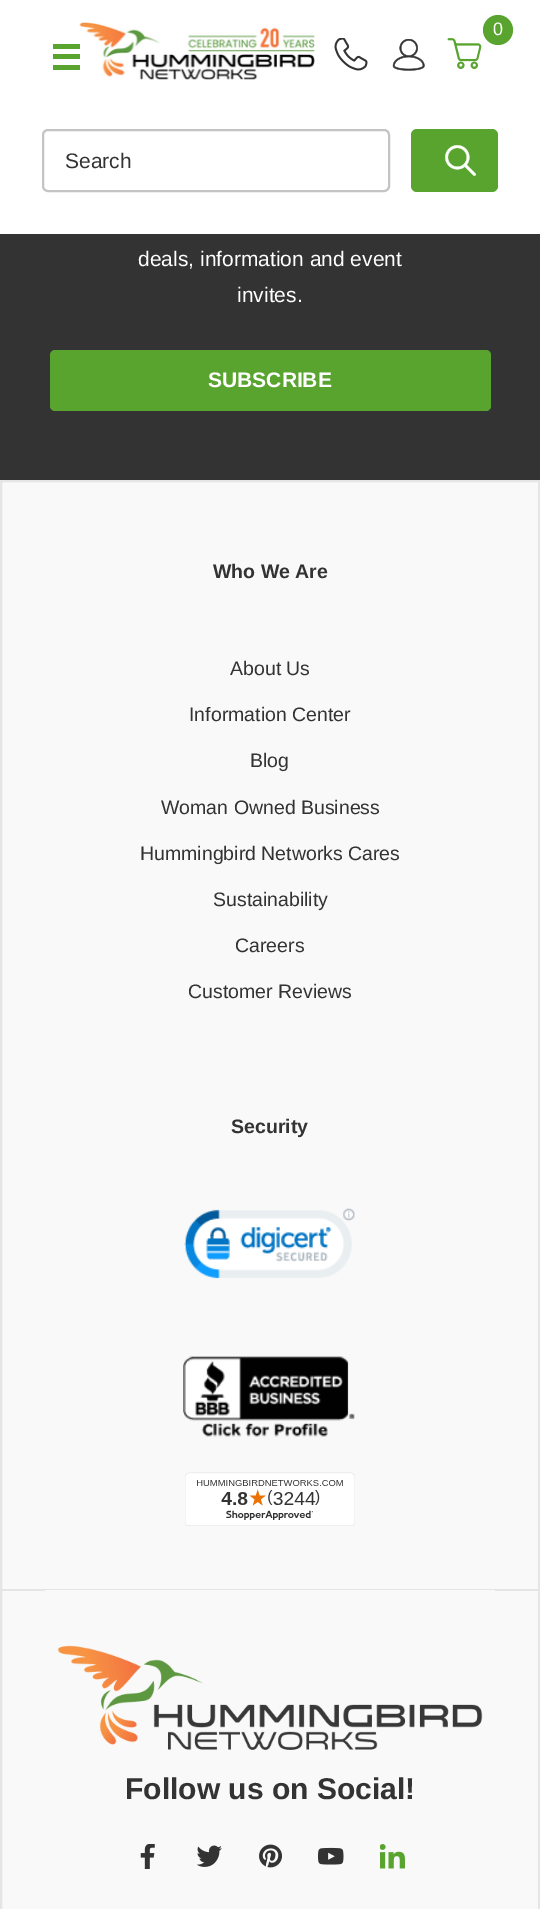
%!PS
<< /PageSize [540 1909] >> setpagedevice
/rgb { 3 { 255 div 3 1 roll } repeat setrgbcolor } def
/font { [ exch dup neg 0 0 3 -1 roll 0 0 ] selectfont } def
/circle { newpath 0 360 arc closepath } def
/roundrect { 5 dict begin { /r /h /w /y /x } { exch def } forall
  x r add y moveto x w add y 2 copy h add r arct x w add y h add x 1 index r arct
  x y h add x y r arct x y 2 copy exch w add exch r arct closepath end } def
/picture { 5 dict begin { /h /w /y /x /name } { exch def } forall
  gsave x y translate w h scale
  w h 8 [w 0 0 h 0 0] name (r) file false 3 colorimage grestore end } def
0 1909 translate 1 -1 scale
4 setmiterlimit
51 51 51 rgb
0 0 540 1909 rectfill
255 255 255 rgb
0 0 540 234 rectfill
88 164 47 rgb
498 30 15 circle fill
(img/1.rgb) 447 38 35 31 picture
(img/2.rgb) 334 38 34 33 picture
(img/3.rgb) 392 39 33 32 picture
196 196 196 rgb
2 setlinewidth
43 130 346 61 5 roundrect stroke
88 164 47 rgb
411 129 87 63 6 roundrect fill
(img/4.rgb) 445 145 31 31 picture
(img/5.rgb) 79 22 236 58 picture
[
  [53 54 27 5 88 164 47]
  [53 44 27 5 88 164 47]
  [53 65 27 5 88 164 47]
] { aload pop rgb rectfill } forall
50 350 441 61 5 roundrect fill
249 249 249 rgb
1 481 moveto 539 481 lineto 539 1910 lineto 1 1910 lineto closepath gsave fill grestore
229 229 229 rgb
stroke
(img/6.rgb) 184 1208 171 71 picture
(img/7.rgb) 183 1356 172 81 picture
(img/8.rgb) 185 1472 170 54 picture
2 1589 537 2 rectfill
249 249 249 rgb
45 1590 450 1 rectfill
(img/9.rgb) 57 1645 426 105 picture
(img/10.rgb) 140 1844 15 25 picture
(img/11.rgb) 197 1845 25 22 picture
(img/12.rgb) 259 1844 23 24 picture
(img/13.rgb) 318 1847 26 18 picture
(img/14.rgb) 380 1844 25 25 picture
/LiberationSans-Regular 18 font
255 255 255 rgb
493 35 moveto (0) show
/LiberationSans-Regular 21 font
51 51 51 rgb
65 168 moveto (Search) show
255 255 255 rgb
138 266 moveto (deals, information and event) show
237 302 moveto (invites.) show
/LiberationSans-Bold 21 font
208 387 moveto (SUBSCRIBE) show
/LiberationSans-Bold 19.5 font
51 51 51 rgb
213 578 moveto (Who We Are) show
/LiberationSans-Regular 19.5 font
[
  [(About Us) 230 675]
  [(Information Center) 189 721]
  [(Blog) 250 767]
  [(Woman Owned Business) 161 814]
  [(Hummingbird Networks Cares) 140 860]
  [(Sustainability) 213 906]
  [(Careers) 235 952]
  [(Customer Reviews) 188 998]
] { aload pop moveto show } forall
/LiberationSans-Bold 19.5 font
231 1133 moveto (Security) show
/LiberationSans-Bold 30 font
125 1799 moveto (Follow us on Social!) show
showpage
